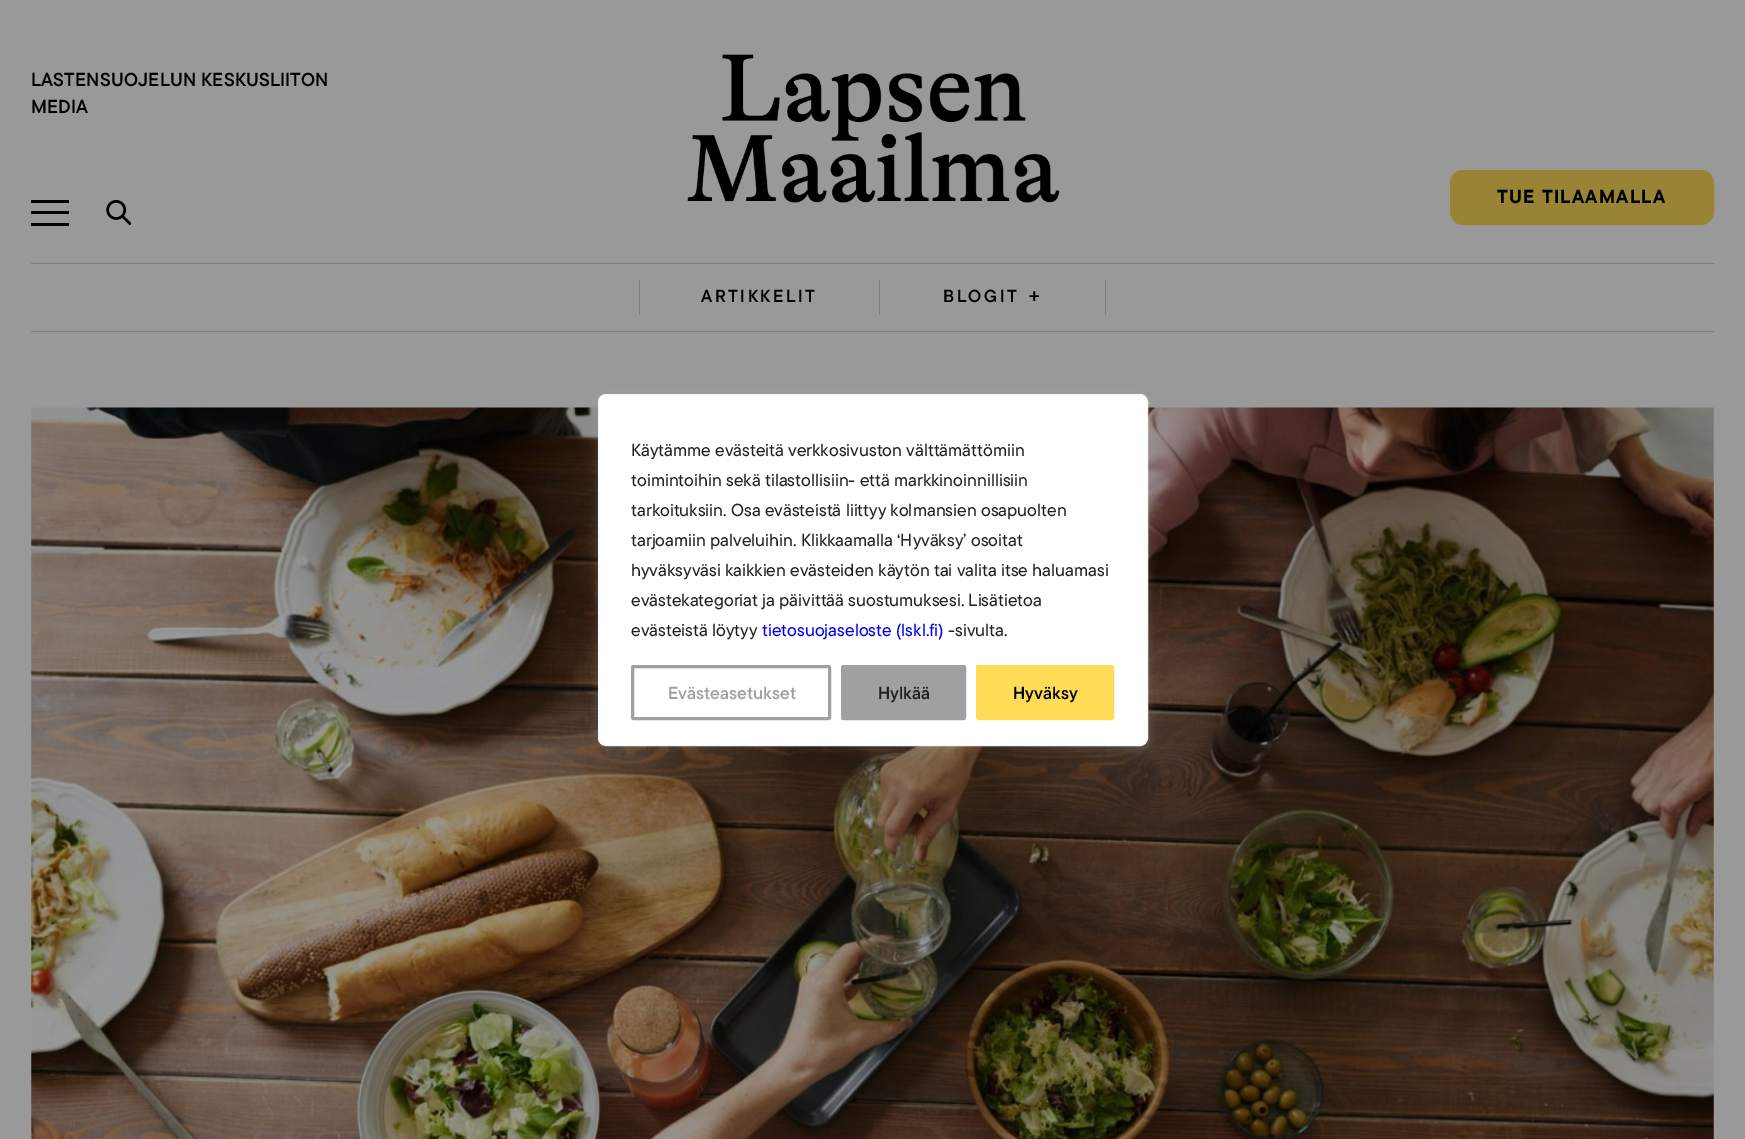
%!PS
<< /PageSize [1745 1139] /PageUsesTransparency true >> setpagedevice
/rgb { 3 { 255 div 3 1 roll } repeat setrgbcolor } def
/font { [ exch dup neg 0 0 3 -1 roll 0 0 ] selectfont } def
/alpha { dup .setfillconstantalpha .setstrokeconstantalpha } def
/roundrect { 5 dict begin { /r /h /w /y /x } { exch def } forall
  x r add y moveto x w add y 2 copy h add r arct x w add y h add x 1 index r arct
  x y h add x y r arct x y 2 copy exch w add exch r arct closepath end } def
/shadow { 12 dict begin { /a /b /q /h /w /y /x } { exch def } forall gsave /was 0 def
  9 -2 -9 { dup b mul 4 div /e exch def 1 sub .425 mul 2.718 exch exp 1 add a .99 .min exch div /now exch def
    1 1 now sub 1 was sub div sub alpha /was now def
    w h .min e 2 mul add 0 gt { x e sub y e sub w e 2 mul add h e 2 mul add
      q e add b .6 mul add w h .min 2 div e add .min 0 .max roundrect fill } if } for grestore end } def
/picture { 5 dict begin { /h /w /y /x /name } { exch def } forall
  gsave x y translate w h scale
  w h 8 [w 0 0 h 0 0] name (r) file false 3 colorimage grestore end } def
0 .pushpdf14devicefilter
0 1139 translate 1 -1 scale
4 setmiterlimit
153 153 153 rgb
0 0 1745 1139 rectfill
[
  [31 200 38 3 0 0 0]
  [31 211 38 3 0 0 0]
  [31 223 38 3 0 0 0]
] { aload pop rgb rectfill } forall
(img/1.rgb) 106 200 25 25 picture
(img/2.rgb) 687 54 373 149 picture
153 131 53 rgb
1451.5 171.5 261 52 11.5 roundrect gsave fill grestore
3 setlinewidth
stroke
[
  [31 263 1683 1 126 126 126]
  [31 331 1683 1 126 126 126]
  [639 280 1 35 126 126 126]
  [879 280 1 35 126 126 126]
  [1105 280 1 35 126 126 126]
] { aload pop rgb rectfill } forall
(img/3.rgb) 31 407 1683 732 picture
172 171 171 rgb
598 393 550 352 8 6 0.3 shadow
255 255 255 rgb
598.5 394.5 549 351 7.5 roundrect gsave fill grestore
244 244 244 rgb
1 setlinewidth
stroke
160 160 160 rgb
3 setlinewidth
632.5 666.5 197 52 1 roundrect stroke
842.5 666.5 122 52 1 roundrect gsave fill grestore
stroke
255 220 88 rgb
977.5 666.5 135 52 1 roundrect gsave fill grestore
stroke
/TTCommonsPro-SemiBold 18.75 font
0 0 0 rgb
31 86 moveto 0.2 0 (LASTENSUOJELUN KESKUSLIITON) ashow
31 113 moveto 0.2 0 (MEDIA) ashow
/TTCommonsPro-Bold 18.75 font
1497 203 moveto 1.25 0 (TUE TILAAMALLA) ashow
/TTCommonsPro-SemiBold 17.5 font
701 302 moveto 2.5 0 (ARTIKKELIT) ashow
943 302 moveto 2.5 0 (BLOGIT) ashow
/TTCommonsPro-Medium 22 font
1028 304 moveto 2.5 0 (+) ashow
/TTCommonsPro-Medium 17.5 font
33 33 33 rgb
[
  [(Käytämme evästeitä verkkosivuston välttämättömiin) 631 456]
  [(toimintoihin sekä tilastollisiin- että markkinoinnillisiin) 631 486]
  [(tarkoituksiin. Osa evästeistä liittyy kolmansien osapuolten) 631 516]
  [(tarjoamiin palveluihin. Klikkaamalla ‘Hyväksy’ osoitat) 631 546]
  [(hyväksyväsi kaikkien evästeiden käytön tai valita itse haluamasi) 631 576]
  [(evästekategoriat ja päivittää suostumuksesi. Lisätietoa) 631 606]
  [(evästeistä löytyy) 631 636]
] { aload pop moveto show } forall
0 0 238 rgb
762 636 moveto (tietosuojaseloste \(lskl.fi\)) show
33 33 33 rgb
948 636 moveto (-sivulta.) show
/TTCommonsPro-SemiBold 17.5 font
160 160 160 rgb
668 699 moveto (Evästeasetukset) show
33 33 33 rgb
878 699 moveto (Hylkää) show
0 0 0 rgb
1013 699 moveto (Hyväksy) show
.poppdf14devicefilter showpage
